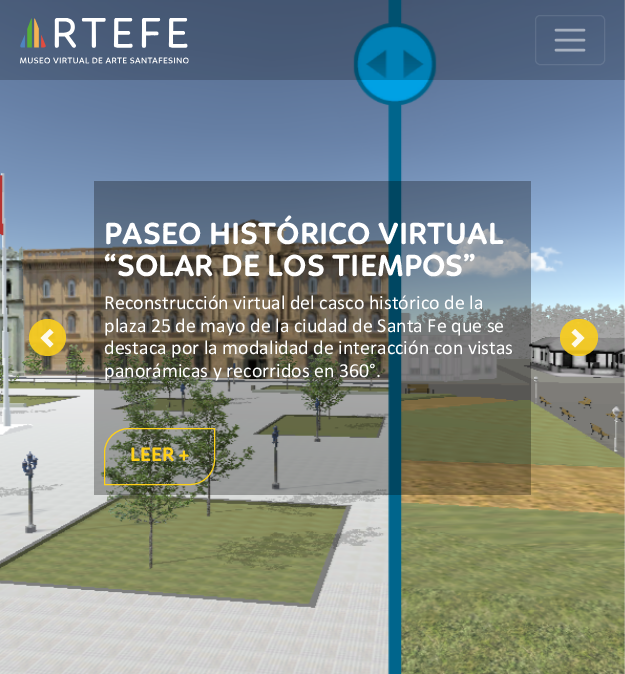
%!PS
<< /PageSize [625 674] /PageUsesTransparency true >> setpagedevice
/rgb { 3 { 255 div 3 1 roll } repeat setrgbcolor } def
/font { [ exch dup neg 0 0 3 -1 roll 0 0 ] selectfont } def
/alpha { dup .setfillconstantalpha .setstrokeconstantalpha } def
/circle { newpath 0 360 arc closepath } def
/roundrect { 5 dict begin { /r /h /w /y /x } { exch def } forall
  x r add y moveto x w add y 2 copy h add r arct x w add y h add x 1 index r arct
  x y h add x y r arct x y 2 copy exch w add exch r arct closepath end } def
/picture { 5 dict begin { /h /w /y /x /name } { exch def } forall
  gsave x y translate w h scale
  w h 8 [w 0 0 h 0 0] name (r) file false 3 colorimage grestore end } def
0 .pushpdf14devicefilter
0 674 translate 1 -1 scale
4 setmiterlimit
255 255 255 rgb
0 0 625 674 rectfill
(img/2.rgb) 0 0 625 674 picture
0.2 alpha
0 0 0 rgb
0 0 625 80 rectfill
1 alpha
(img/1.rgb) 20 18 169 46 picture
0.1 alpha
255 255 255 rgb
535.5 15.5 69 49 4.5 roundrect stroke
0.5 alpha
2.5 setlinewidth
1 setlinecap
556 30 moveto 584 30 lineto 556 40 moveto 584 40 lineto 556 50 moveto 584 50 lineto stroke
0.9 alpha
250 206 29 rgb
47.5 337.5 18.5 circle fill
255 255 255 rgb
50 329 moveto 40.5 338 lineto 50 347.5 lineto 53.5 344 lineto 47.5 338 lineto 53.5 332.5 lineto closepath fill
0.3 alpha
0 0 0 rgb
94 181 437 314 rectfill
1 alpha
255 209 23 rgb
1 setlinewidth
0 setlinecap
129 428.5 moveto 214.5 428.5 lineto 214.5 460 lineto 214.5 473.5 203.5 484.5 190 484.5 curveto 104.5 484.5 lineto 104.5 453 lineto 104.5 439.5 115.5 428.5 129 428.5 curveto closepath stroke
0.9 alpha
250 206 29 rgb
560 319 38 37 18.5 roundrect fill
255 255 255 rgb
575 329 moveto 571.5 332.5 lineto 577.5 338 lineto 571.5 344 lineto 575 347.5 lineto 584.5 338 lineto closepath fill
/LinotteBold-Bold 31.25 font
1 alpha
104 244 moveto (PASEO HISTÓRICO VIRTUAL) show
104 276 moveto (“SOLAR DE LOS TIEMPOS”) show
/Calibri-Regular 20 font
[
  [(Reconstrucción virtual del casco histórico de la) 104 309]
  [(plaza 25 de mayo de la ciudad de Santa Fe que se) 104 332]
  [(destaca por la modalidad de interacción con vistas) 104 354]
  [(panorámicas y recorridos en 360°.) 104 377]
] { aload pop moveto show } forall
/LinotteBold-Bold 20 font
255 209 23 rgb
130 461 moveto (LEER +) show
.poppdf14devicefilter showpage
